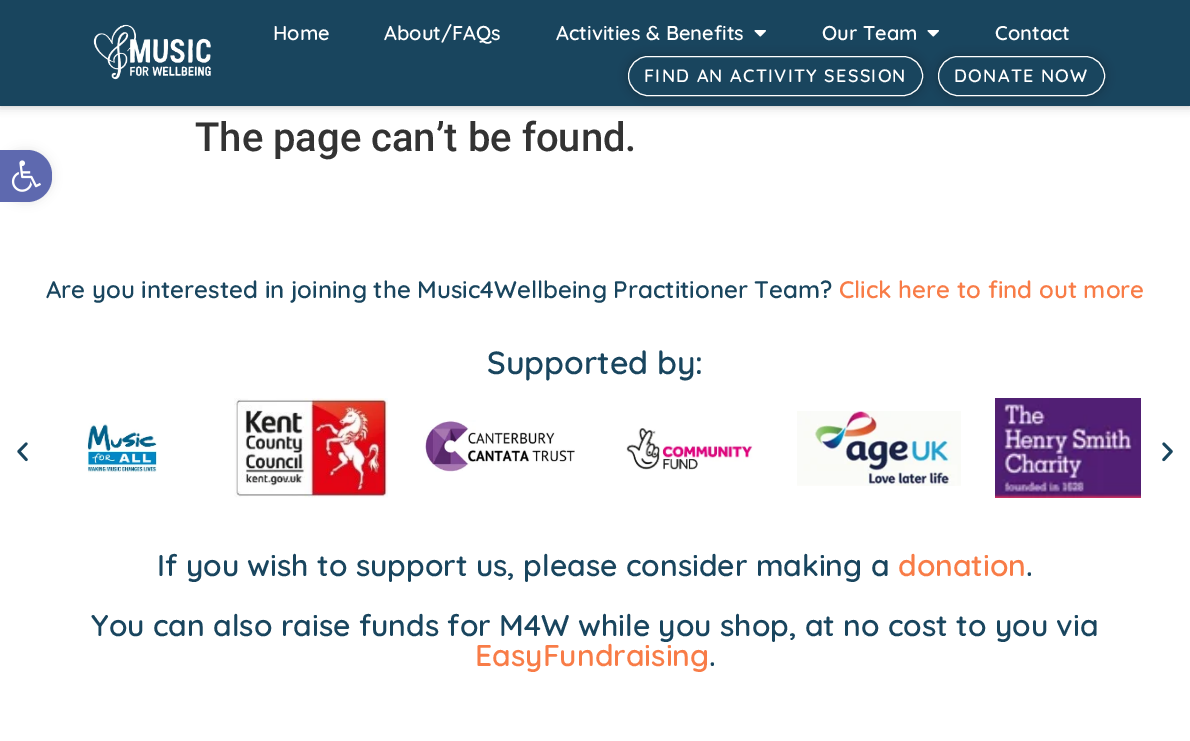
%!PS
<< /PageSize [1190 741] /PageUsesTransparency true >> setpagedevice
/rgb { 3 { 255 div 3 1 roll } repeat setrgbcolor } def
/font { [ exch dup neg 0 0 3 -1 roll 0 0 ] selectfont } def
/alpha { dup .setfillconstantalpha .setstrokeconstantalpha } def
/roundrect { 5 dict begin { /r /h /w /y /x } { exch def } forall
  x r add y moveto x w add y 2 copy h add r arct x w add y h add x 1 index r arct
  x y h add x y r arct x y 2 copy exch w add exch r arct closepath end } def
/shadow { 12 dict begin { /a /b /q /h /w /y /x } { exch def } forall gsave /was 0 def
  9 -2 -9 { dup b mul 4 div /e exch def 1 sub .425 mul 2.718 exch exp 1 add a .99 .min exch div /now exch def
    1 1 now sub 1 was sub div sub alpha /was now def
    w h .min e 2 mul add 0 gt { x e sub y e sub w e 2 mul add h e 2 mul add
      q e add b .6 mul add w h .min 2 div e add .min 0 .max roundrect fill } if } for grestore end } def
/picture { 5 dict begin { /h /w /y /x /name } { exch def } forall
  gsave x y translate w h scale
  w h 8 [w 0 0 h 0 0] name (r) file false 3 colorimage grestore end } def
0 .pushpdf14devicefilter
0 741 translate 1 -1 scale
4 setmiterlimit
255 255 255 rgb
0 0 1190 741 rectfill
0 0 0 rgb
0 0 1190 106 0 5 0.25 shadow
25 69 94 rgb
0 0 1190 106 rectfill
(img/1.rgb) 93 24 118 56 picture
(img/2.rgb) 754 30 12 7 picture
(img/2.rgb) 927 30 12 7 picture
gsave
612 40 moveto 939 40 lineto 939 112 lineto 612 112 lineto closepath 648 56 moveto 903 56 lineto 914 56 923 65 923 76 curveto 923 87 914 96 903 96 curveto 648 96 lineto 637 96 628 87 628 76 curveto 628 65 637 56 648 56 curveto closepath eoclip newpath
0 0 0 rgb
628 56 295 40 20 5 0.25 shadow
grestore
255 255 255 rgb
628.5 56.5 294 39 19.5 roundrect stroke
gsave
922 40 moveto 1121 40 lineto 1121 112 lineto 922 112 lineto closepath 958 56 moveto 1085 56 lineto 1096 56 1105 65 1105 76 curveto 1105 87 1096 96 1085 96 curveto 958 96 lineto 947 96 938 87 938 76 curveto 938 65 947 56 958 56 curveto closepath eoclip newpath
0 0 0 rgb
938 56 167 40 20 5 0.25 shadow
grestore
938.5 56.5 166 39 19.5 roundrect stroke
0 0 0 rgb
0 150 52 52 25 5 0.1 shadow
94 105 175 rgb
0 150 moveto 27 150 lineto 41 150 52 161 52 175 curveto 52 177 lineto 52 191 41 202 27 202 curveto 0 202 lineto closepath fill
(img/3.rgb) 11 160 30 32 picture
(img/4.rgb) 17 442 11 20 picture
(img/5.rgb) 86 423 71 50 picture
(img/6.rgb) 234 398 154 100 picture
(img/7.rgb) 423 420 152 52 picture
(img/8.rgb) 626 428 127 42 picture
(img/9.rgb) 797 411 164 75 picture
(img/10.rgb) 995 398 146 100 picture
(img/11.rgb) 1162 442 11 20 picture
/Quicksand-SemiBold 20 font
255 255 255 rgb
[
  [(Home) 273 40]
  [(About/FAQs) 384 40]
  [(Activities & Benefits) 556 40]
  [(Our Team) 822 40]
  [(Contact) 995 40]
] { aload pop moveto show } forall
/Quicksand-SemiBold 18 font
644 82 moveto 1.3 0 (FIND AN ACTIVITY SESSION) ashow
954 82 moveto 1.3 0 (DONATE NOW) ashow
/Roboto-Medium 40 font
51 51 51 rgb
195 151 moveto (The page can’t be found.) show
/Quicksand-SemiBold 24 font
25 69 94 rgb
46 298 moveto (Are you interested in joining the Music4Wellbeing Practitioner Team?) show
248 124 71 rgb
839 298 moveto (Click here to find out more) show
/Quicksand-SemiBold 32 font
25 69 94 rgb
487 374 moveto (Supported by:) show
/Quicksand-SemiBold 30 font
157 576 moveto (If you wish to support us, please consider making a) show
248 124 71 rgb
898 576 moveto (donation) show
25 69 94 rgb
1026 576 moveto (.) show
91 636 moveto (You can also raise funds for M4W while you shop, at no cost to you via) show
248 124 71 rgb
475 666 moveto (EasyFundraising) show
25 69 94 rgb
709 666 moveto (.) show
.poppdf14devicefilter showpage
